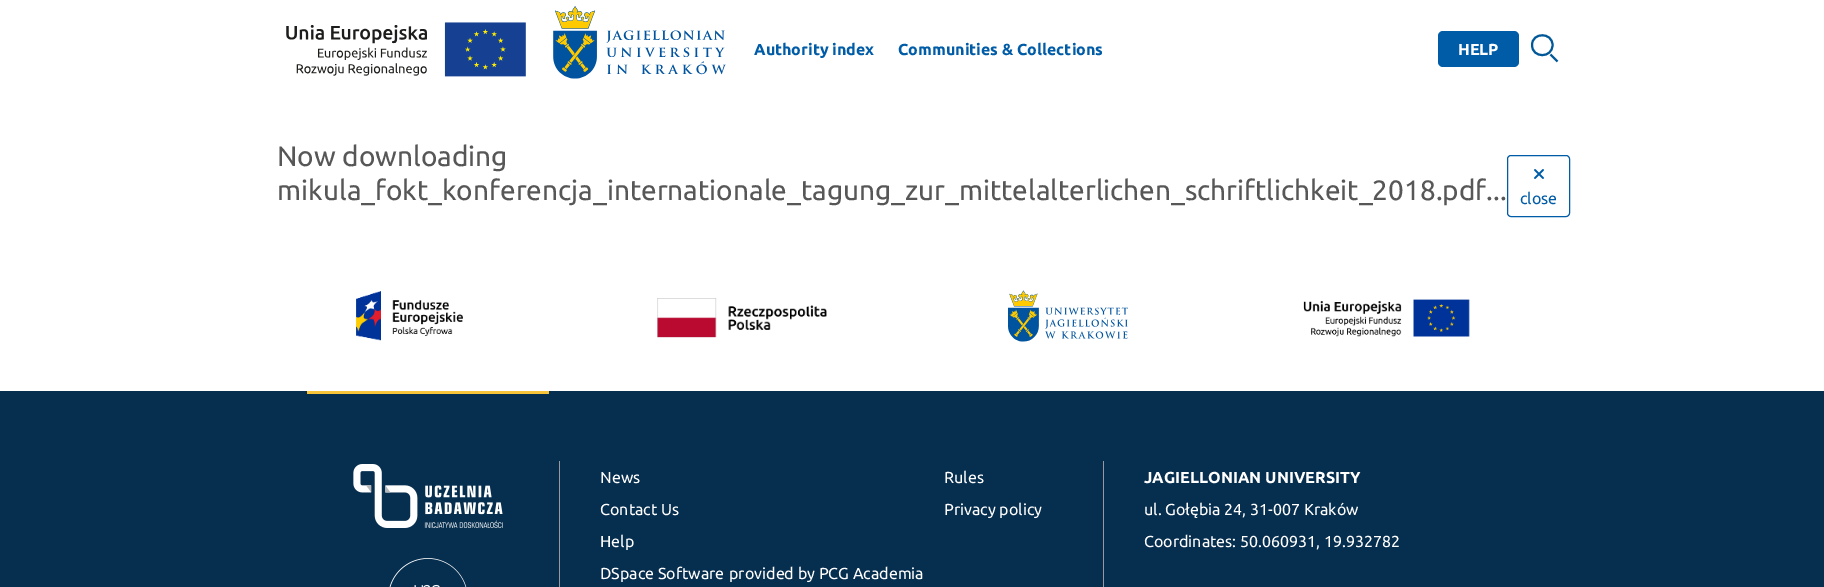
%!PS
<< /PageSize [1824 587] >> setpagedevice
/rgb { 3 { 255 div 3 1 roll } repeat setrgbcolor } def
/font { [ exch dup neg 0 0 3 -1 roll 0 0 ] selectfont } def
/roundrect { 5 dict begin { /r /h /w /y /x } { exch def } forall
  x r add y moveto x w add y 2 copy h add r arct x w add y h add x 1 index r arct
  x y h add x y r arct x y 2 copy exch w add exch r arct closepath end } def
/picture { 5 dict begin { /h /w /y /x /name } { exch def } forall
  gsave x y translate w h scale
  w h 8 [w 0 0 h 0 0] name (r) file false 3 colorimage grestore end } def
0 587 translate 1 -1 scale
4 setmiterlimit
255 255 255 rgb
0 0 1824 587 rectfill
(img/1.rgb) 286 22 240 55 picture
(img/2.rgb) 553 6 173 73 picture
0 92 167 rgb
1438 31 81 36 5 roundrect fill
0 88 152 rgb
2 setlinewidth
1552.5 45 moveto 1552.5 58.5 1532 58.5 1532 45 curveto 1532 32 1552.5 32 1552.5 45 curveto closepath 1550.5 54.5 moveto 1557.5 61.5 lineto closepath stroke
0 92 167 rgb
1 setlinewidth
1507.5 155.5 62 61 3.5 roundrect stroke
(img/3.rgb) 1534 169 10 10 picture
(img/4.rgb) 356 291 107 50 picture
(img/5.rgb) 657 298 170 40 picture
(img/6.rgb) 1008 290 120 52 picture
(img/7.rgb) 1303 299 167 38 picture
6 46 78 rgb
0 391 1824 196 rectfill
248 197 58 rgb
307 391 242 3 rectfill
(img/8.rgb) 353 464 150 64 picture
(img/9.rgb) 389 558 78 29 picture
153 153 153 rgb
1103 461 1 126 rectfill
559 461 1 126 rectfill
/Ubuntu-Bold 16 font
0 92 167 rgb
754 55 moveto (Authority index) show
898 55 moveto (Communities & Collections) show
255 255 255 rgb
1458 55 moveto (HELP) show
/Ubuntu-Regular 28 font
87 87 87 rgb
277 166 moveto (Now downloading) show
277 200 moveto (mikula_fokt_konferencja_internationale_tagung_zur_mittelalterlichen_schriftlichkeit_2018.pdf...) show
/Ubuntu-Regular 16 font
0 92 167 rgb
1520 204 moveto (close) show
255 255 255 rgb
[
  [(News) 600 483]
  [(Rules) 944 483]
  [(Contact Us) 600 515]
  [(Privacy policy) 944 515]
  [(Help) 600 547]
  [(DSpace Software) 600 579]
  [(provided by PCG Academia) 729 579]
] { aload pop moveto show } forall
/Ubuntu-Bold 16 font
1144 483 moveto (JAGIELLONIAN UNIVERSITY) show
/Ubuntu-Regular 16 font
1144 515 moveto (ul. Gołębia 24, 31-007 Kraków) show
1144 547 moveto (Coordinates: 50.060931, 19.932782) show
showpage
